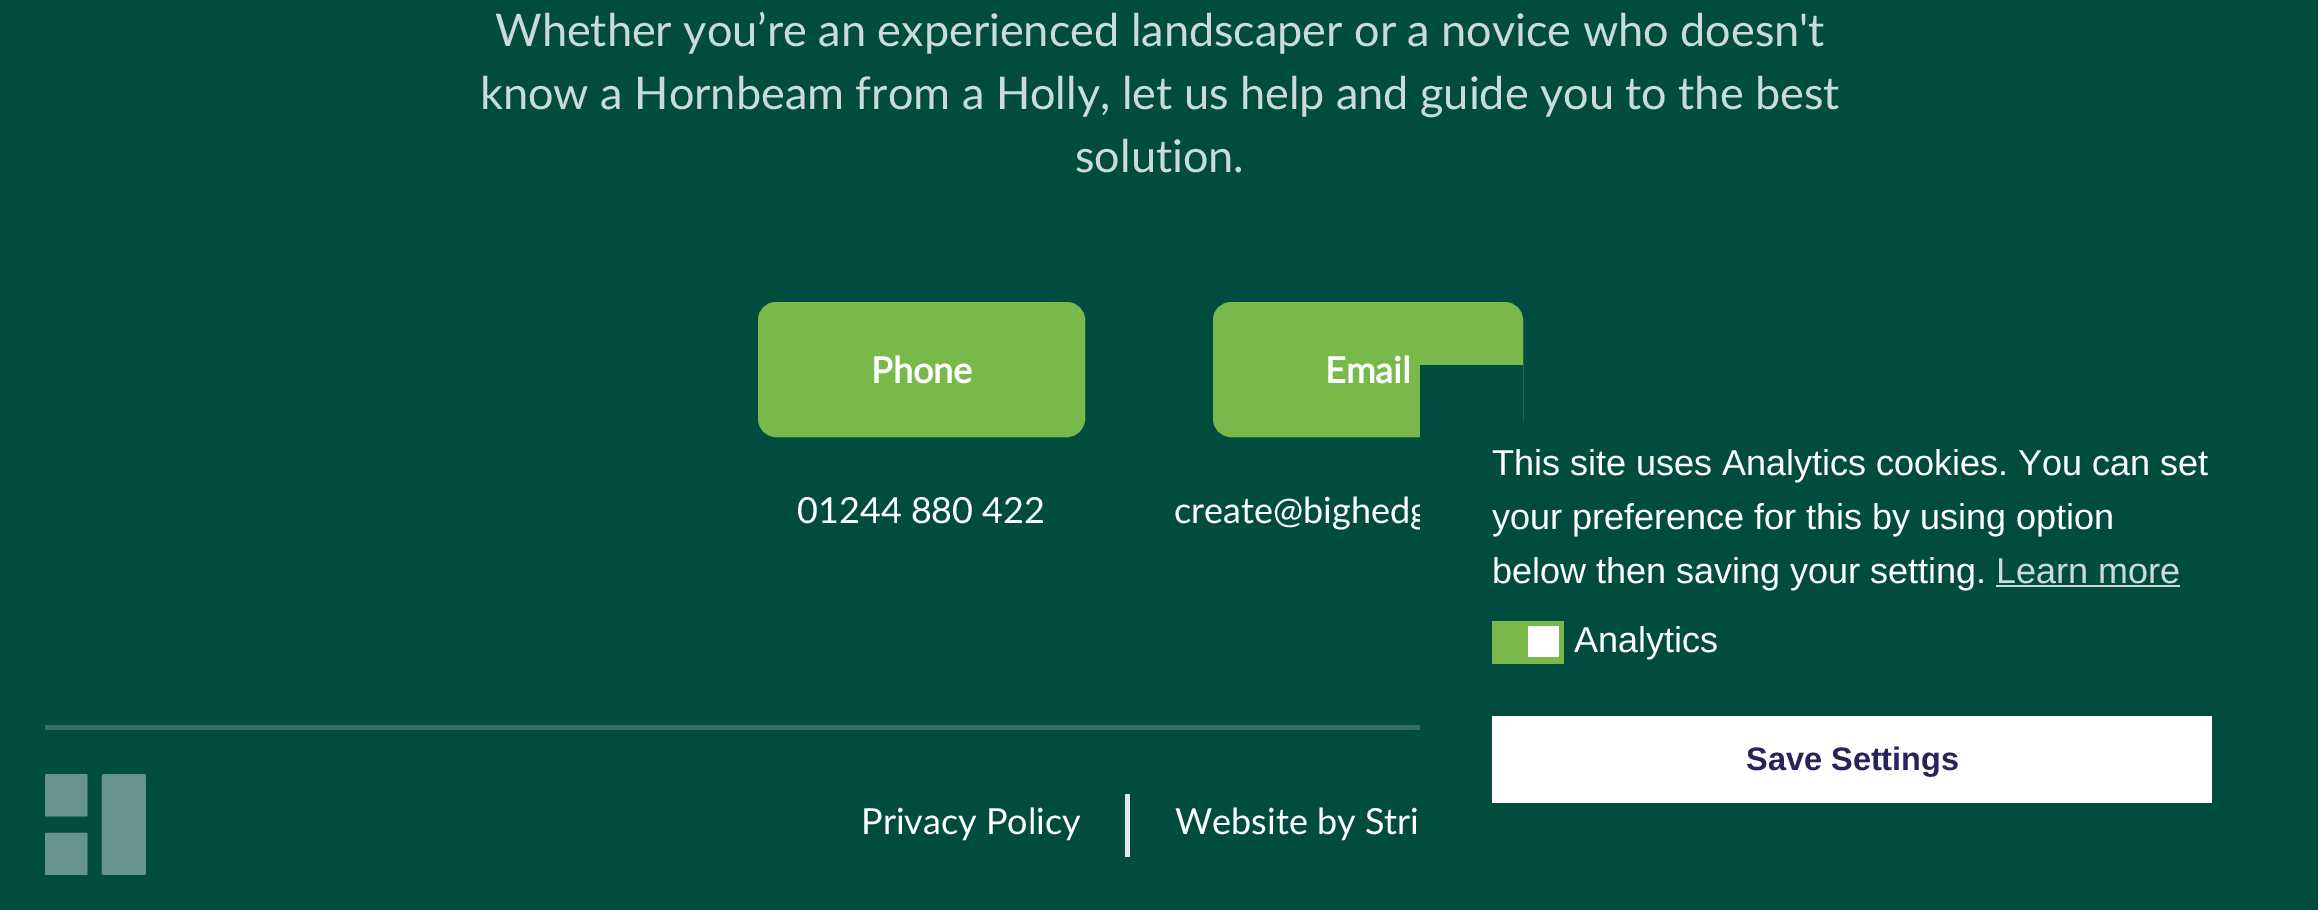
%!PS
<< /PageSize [2318 910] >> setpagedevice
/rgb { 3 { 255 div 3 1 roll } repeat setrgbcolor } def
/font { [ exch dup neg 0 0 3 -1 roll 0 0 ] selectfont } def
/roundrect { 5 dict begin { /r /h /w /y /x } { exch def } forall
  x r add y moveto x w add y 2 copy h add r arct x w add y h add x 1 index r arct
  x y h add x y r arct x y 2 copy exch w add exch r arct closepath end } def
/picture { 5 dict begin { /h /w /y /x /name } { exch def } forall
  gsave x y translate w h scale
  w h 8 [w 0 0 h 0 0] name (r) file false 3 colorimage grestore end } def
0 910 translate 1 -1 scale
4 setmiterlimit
0 77 64 rgb
0 0 2318 910 rectfill
121 185 75 rgb
760.5 304.5 322 130 15.5 roundrect gsave fill grestore
5 setlinewidth
stroke
1215.5 304.5 305 130 15.5 roundrect gsave fill grestore
stroke
51 113 102 rgb
45 725 1375 5 rectfill
(img/1.rgb) 45 774 101 101 picture
[
  [1125 794 5 63 229 231 235]
  [1996 585 184 2 204 219 217]
  [1492 621 72 43 121 185 75]
  [1528 626 31 31 255 255 255]
  [1492 716 720 87 255 255 255]
] { aload pop rgb rectfill } forall
/Lato-Regular 45 font
204 219 217 rgb
[
  [(Whether you’re an experienced landscaper or a novice who doesn't) 495 46]
  [(know a Hornbeam from a Holly, let us help and guide you to the best) 480 109]
  [(solution.) 1075 172]
] { aload pop moveto show } forall
/Lato-Bold 36 font
255 255 255 rgb
871 383 moveto (Phone) show
/Lato-Regular 36 font
797 523 moveto (01244 880 422) show
/Lato-Bold 36 font
1325 383 moveto (Email) show
/Lato-Regular 36 font
[
  [(create@bighedg) 1174 523]
  [(Privacy Policy) 861 834]
  [(Website by Stri) 1175 834]
] { aload pop moveto show } forall
0 77 64 rgb
1420 365 103 165 rectfill
/LiberationSans-Regular 36 font
255 255 255 rgb
[
  [(This site uses Analytics cookies. You can set) 1492 475]
  [(your preference for this by using option) 1492 529]
  [(below then saving your setting.) 1492 583]
] { aload pop moveto show } forall
204 219 217 rgb
1996 583 moveto (Learn more) show
255 255 255 rgb
1574 652 moveto (Analytics) show
/LiberationSans-Bold 32.5 font
41 35 92 rgb
1746 770 moveto (Save Settings) show
showpage
